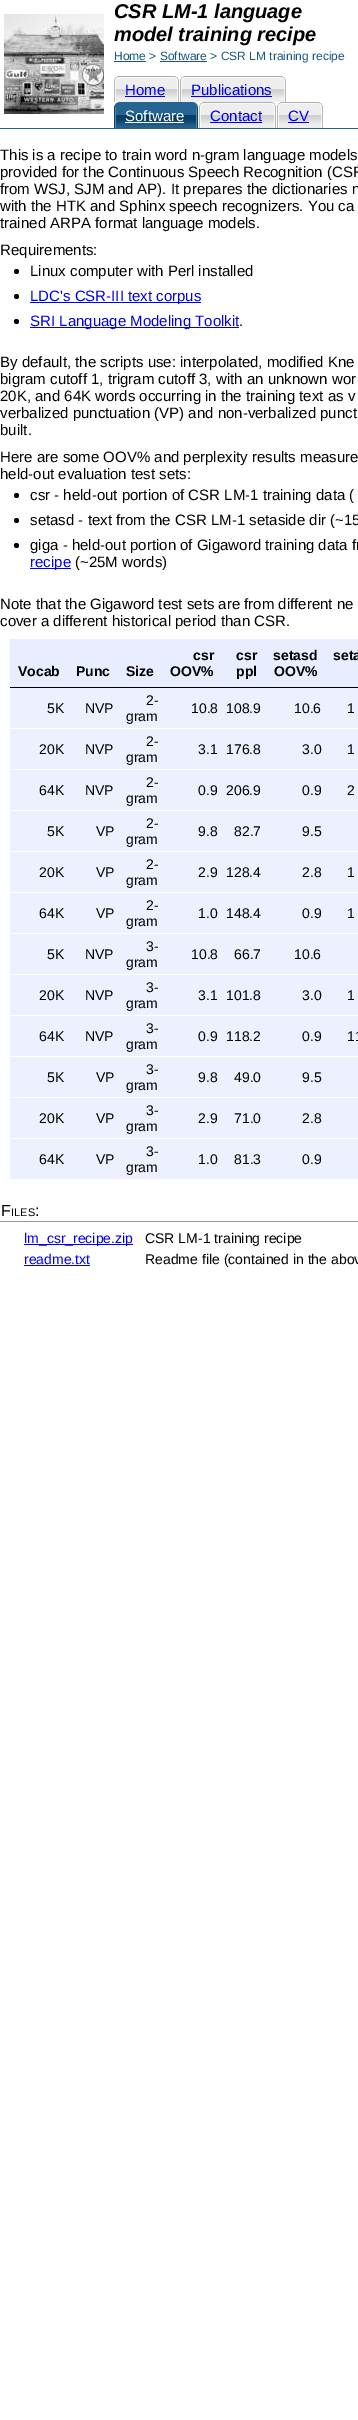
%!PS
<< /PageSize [358 2420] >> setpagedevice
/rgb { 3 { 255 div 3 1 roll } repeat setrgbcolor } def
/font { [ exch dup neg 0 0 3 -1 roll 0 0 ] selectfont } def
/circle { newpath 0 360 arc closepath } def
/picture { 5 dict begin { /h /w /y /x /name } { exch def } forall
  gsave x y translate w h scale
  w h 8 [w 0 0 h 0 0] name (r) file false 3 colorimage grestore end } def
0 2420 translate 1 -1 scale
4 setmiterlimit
255 255 255 rgb
0 0 358 2420 rectfill
(img/1.rgb) 4 14 100 100 picture
24 85 127 rgb
114 61 32 1 rectfill
160 61 47 1 rectfill
(img/2.rgb) 114 76 5 26 picture
(img/3.rgb) 119 76 60 26 picture
0 0 238 rgb
125 96 40 1 rectfill
(img/2.rgb) 180 76 5 26 picture
(img/4.rgb) 185 76 101 26 picture
191 96 81 1 rectfill
(img/5.rgb) 114 102 5 26 picture
(img/6.rgb) 119 102 80 26 picture
255 255 255 rgb
125 122 59 1 rectfill
(img/2.rgb) 199 102 5 26 picture
(img/7.rgb) 204 102 72 26 picture
0 0 238 rgb
210 122 52 1 rectfill
(img/2.rgb) 277 102 5 26 picture
(img/8.rgb) 282 102 41 26 picture
288 122 21 1 rectfill
36 97 142 rgb
0 128 358 1 rectfill
0 0 0 rgb
16.5 271.5 2.5 circle fill
16.5 296.5 2.5 circle fill
0 0 238 rgb
30 302 171 1 rectfill
0 0 0 rgb
16.5 321.5 2.5 circle fill
0 0 238 rgb
30 327 209 1 rectfill
0 0 0 rgb
16.5 495.5 2.5 circle fill
16.5 520.5 2.5 circle fill
16.5 545.5 2.5 circle fill
[
  [30 568 41 1 0 0 238]
  [10 639 348 48 232 237 255]
  [10 687 348 1 0 0 0]
  [10 688 348 40 237 240 255]
  [10 729 348 40 237 240 255]
  [10 770 348 40 237 240 255]
  [10 811 348 40 237 240 255]
  [10 852 348 40 237 240 255]
  [10 893 348 40 237 240 255]
  [10 934 348 40 237 240 255]
  [10 975 348 40 237 240 255]
  [10 1016 348 40 237 240 255]
  [10 1057 348 40 237 240 255]
  [10 1098 348 40 237 240 255]
  [10 1139 348 40 237 240 255]
  [0 1221 358 1 153 153 153]
  [24 1244 109 1 0 0 238]
  [24 1265 66 1 0 0 238]
] { aload pop rgb rectfill } forall
/LiberationSans-BoldItalic 20 font
0 0 0 rgb
114 18 moveto (CSR LM-1 language) show
114 41 moveto (model training recipe) show
/LiberationSans-Regular 12 font
24 85 127 rgb
114 60 moveto (Home > Software > CSR LM training recipe) show
/LiberationSans-Regular 15 font
0 0 238 rgb
125 95 moveto (Home) show
191 95 moveto (Publications) show
255 255 255 rgb
125 121 moveto (Software) show
0 0 238 rgb
210 121 moveto (Contact) show
288 121 moveto (CV) show
0 0 0 rgb
[
  [(This is a recipe to train word n-gram language models) 0 160]
  [(provided for the Continuous Speech Recognition \(CSR) 0 177]
  [(from WSJ, SJM and AP\). It prepares the dictionaries n) 0 194]
  [(with the HTK and Sphinx speech recognizers. You ca) 0 211]
  [(trained ARPA format language models.) 0 228]
  [(Requirements:) 0 255]
  [(Linux computer with Perl installed) 30 276]
] { aload pop moveto show } forall
0 0 238 rgb
30 301 moveto (LDC's CSR-III text corpus) show
30 326 moveto (SRI Language Modeling Toolkit) show
0 0 0 rgb
[
  [(.) 239 326]
  [(By default, the scripts use: interpolated, modified Kne) 0 367]
  [(bigram cutoff 1, trigram cutoff 3, with an unknown wor) 0 384]
  [(20K, and 64K words occurring in the training text as v) 0 401]
  [(verbalized punctuation \(VP\) and non-verbalized punct) 0 418]
  [(built.) 0 435]
  [(Here are some OOV% and perplexity results measure) 0 462]
  [(held-out evaluation test sets:) 0 479]
  [(csr - held-out portion of CSR LM-1 training data \() 30 500]
  [(setasd - text from the CSR LM-1 setaside dir \(~15) 30 525]
  [(giga - held-out portion of Gigaword training data fr) 30 550]
] { aload pop moveto show } forall
0 0 238 rgb
30 567 moveto (recipe) show
0 0 0 rgb
[
  [(\(~25M words\)) 75 567]
  [(Note that the Gigaword test sets are from different ne) 0 609]
  [(cover a different historical period than CSR.) 0 626]
] { aload pop moveto show } forall
/LiberationSans-Bold 14 font
[
  [(Vocab) 18 676]
  [(Punc) 76 676]
  [(Size) 126 676]
  [(csr) 193 660]
  [(OOV%) 170 676]
  [(csr) 236 660]
  [(ppl) 236 676]
  [(setasd) 273 660]
  [(OOV%) 274 676]
  [(seta) 333 660]
] { aload pop moveto show } forall
/LiberationSans-Regular 14 font
[
  [(5K) 47 713]
  [(NVP) 85 713]
  [(2-) 146 705]
  [(gram) 126 721]
  [(10.8) 191 713]
  [(108.9) 226 713]
  [(10.6) 294 713]
  [(1) 347 713]
  [(20K) 39 754]
  [(NVP) 85 754]
  [(2-) 146 746]
  [(gram) 126 762]
  [(3.1) 198 754]
  [(176.8) 226 754]
  [(3.0) 302 754]
  [(1) 347 754]
  [(64K) 39 795]
  [(NVP) 85 795]
  [(2-) 146 787]
  [(gram) 126 803]
  [(0.9) 198 795]
  [(206.9) 226 795]
  [(0.9) 302 795]
  [(2) 347 795]
  [(5K) 47 836]
  [(VP) 96 836]
  [(2-) 146 828]
  [(gram) 126 844]
  [(9.8) 198 836]
  [(82.7) 234 836]
  [(9.5) 302 836]
  [(20K) 39 877]
  [(VP) 96 877]
  [(2-) 146 869]
  [(gram) 126 885]
  [(2.9) 198 877]
  [(128.4) 226 877]
  [(2.8) 302 877]
  [(1) 347 877]
  [(64K) 39 918]
  [(VP) 96 918]
  [(2-) 146 910]
  [(gram) 126 926]
  [(1.0) 198 918]
  [(148.4) 226 918]
  [(0.9) 302 918]
  [(1) 347 918]
  [(5K) 47 959]
  [(NVP) 85 959]
  [(3-) 146 951]
  [(gram) 126 967]
  [(10.8) 191 959]
  [(66.7) 234 959]
  [(10.6) 294 959]
  [(20K) 39 1000]
  [(NVP) 85 1000]
  [(3-) 146 992]
  [(gram) 126 1008]
  [(3.1) 198 1000]
  [(101.8) 226 1000]
  [(3.0) 302 1000]
  [(1) 347 1000]
  [(64K) 39 1041]
  [(NVP) 85 1041]
  [(3-) 146 1033]
  [(gram) 126 1049]
  [(0.9) 198 1041]
  [(118.2) 226 1041]
  [(0.9) 302 1041]
  [(11) 347 1041]
  [(5K) 47 1082]
  [(VP) 96 1082]
  [(3-) 146 1074]
  [(gram) 126 1090]
  [(9.8) 198 1082]
  [(49.0) 234 1082]
  [(9.5) 302 1082]
  [(20K) 39 1123]
  [(VP) 96 1123]
  [(3-) 146 1115]
  [(gram) 126 1131]
  [(2.9) 198 1123]
  [(71.0) 234 1123]
  [(2.8) 302 1123]
  [(64K) 39 1164]
  [(VP) 96 1164]
  [(3-) 146 1156]
  [(gram) 126 1172]
  [(1.0) 198 1164]
  [(81.3) 234 1164]
  [(0.9) 302 1164]
] { aload pop moveto show } forall
/LiberationSans-Regular 16 font
1 1216 moveto (F) show
/LiberationSans-Regular 11 font
11 1216 moveto (ILES) show
/LiberationSans-Regular 16 font
35 1216 moveto (:) show
/LiberationSans-Regular 14 font
0 0 238 rgb
24 1243 moveto (lm_csr_recipe.zip) show
0 0 0 rgb
145 1243 moveto (CSR LM-1 training recipe) show
0 0 238 rgb
24 1264 moveto (readme.txt) show
0 0 0 rgb
145 1264 moveto (Readme file \(contained in the abov) show
showpage
